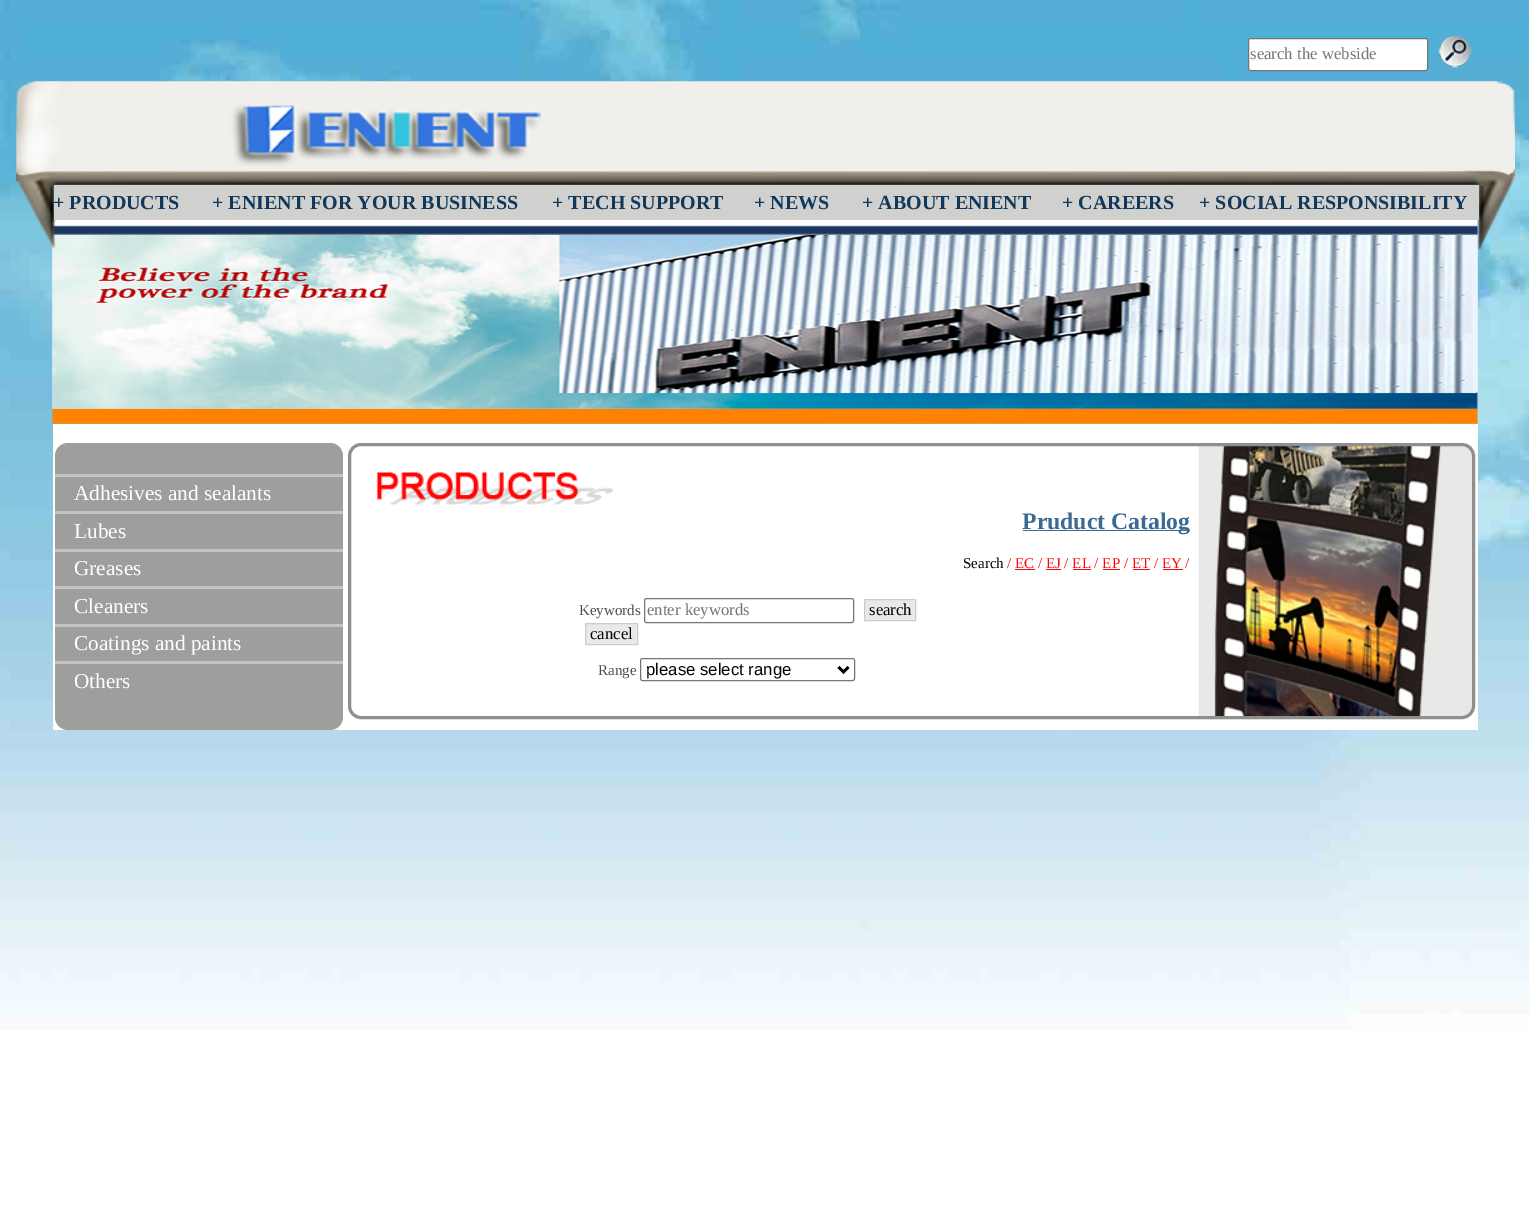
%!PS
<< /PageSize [1529 1206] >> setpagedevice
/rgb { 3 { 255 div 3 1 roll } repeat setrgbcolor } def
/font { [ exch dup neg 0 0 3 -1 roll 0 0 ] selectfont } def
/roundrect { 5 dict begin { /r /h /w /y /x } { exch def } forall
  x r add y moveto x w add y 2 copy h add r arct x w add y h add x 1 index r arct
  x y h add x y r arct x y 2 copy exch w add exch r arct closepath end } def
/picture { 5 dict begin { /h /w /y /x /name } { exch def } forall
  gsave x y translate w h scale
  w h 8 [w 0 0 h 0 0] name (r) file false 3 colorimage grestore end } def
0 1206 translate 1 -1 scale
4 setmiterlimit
255 255 255 rgb
0 0 1529 1206 rectfill
(img/1.rgb) 0 0 1529 1030 picture
1248.5 38.5 179 32 2 roundrect gsave fill grestore
118 118 118 rgb
stroke
(img/2.rgb) 1438 36 34 32 picture
(img/4.rgb) 52 218 1426 206 picture
(img/5.rgb) 52 235 1426 174 picture
(img/3.rgb) 16 81 1499 169 picture
208 208 206 rgb
54 185 1425 35 rectfill
255 255 255 rgb
53 424 1425 306 rectfill
158 158 156 rgb
55 443 288 287 13 roundrect fill
[
  [55 474 288 3 195 195 194]
  [55 511 288 3 195 195 194]
  [55 549 288 3 195 195 194]
  [55 586 288 3 195 195 194]
  [55 624 288 3 195 195 194]
  [55 661 288 3 195 195 194]
] { aload pop rgb rectfill } forall
(img/6.rgb) 1198 445 275 274 picture
144 143 143 rgb
3 setlinewidth
349.5 444.5 1124 273 11.5 roundrect stroke
(img/7.rgb) 376 472 238 33 picture
[
  [1023 530 167 1 60 106 147]
  [1015 569 20 1 255 4 4]
  [1046 569 15 1 255 4 4]
  [1073 569 18 1 255 4 4]
  [1103 569 17 1 255 4 4]
  [1133 569 17 1 255 4 4]
  [1163 569 20 1 255 4 4]
] { aload pop rgb rectfill } forall
118 118 118 rgb
1 setlinewidth
644.5 598.5 209 24 2 roundrect stroke
233 233 232 rgb
864.5 599.5 moveto 915.5 599.5 lineto 915.5 620.5 lineto 864.5 620.5 lineto closepath gsave fill grestore
204 204 204 rgb
stroke
233 233 232 rgb
585.5 623.5 moveto 637.5 623.5 lineto 637.5 644.5 lineto 585.5 644.5 lineto closepath gsave fill grestore
204 204 204 rgb
stroke
118 118 118 rgb
640.5 658.5 214 22 2 roundrect stroke
0 0 0 rgb
2.5 setlinewidth
838.5 667 moveto 843.5 672 lineto 848.5 667 lineto stroke
/LiberationSerif-Regular 16.75 font
117 117 117 rgb
1250 59 moveto (search the webside) show
/LiberationSerif-Bold 20 font
17 56 90 rgb
[
  [(+ PRODUCTS) 53 209]
  [(+ ENIENT FOR YOUR BUSINESS) 212 209]
  [(+ TECH SUPPORT) 552 209]
  [(+ NEWS) 754 209]
  [(+ ABOUT ENIENT) 862 209]
  [(+ CAREERS) 1062 209]
  [(+ SOCIAL RESPONSIBILITY) 1199 209]
] { aload pop moveto show } forall
/LiberationSerif-Regular 21.25 font
255 255 255 rgb
[
  [(Adhesives and sealants) 74 500]
  [(Lubes) 74 538]
  [(Greases) 74 575]
  [(Cleaners) 74 613]
  [(Coatings and paints) 74 650]
  [(Others) 74 688]
] { aload pop moveto show } forall
/LiberationSerif-Bold 23.75 font
60 106 147 rgb
1022 529 moveto (Pruduct Catalog) show
/LiberationSerif-Regular 15 font
2 2 2 rgb
963 568 moveto (Search) show
255 4 4 rgb
1007 568 moveto (/ EC / EJ / EL / EP / ET / EY /) show
76 76 76 rgb
579 615 moveto (Keywords) show
/LiberationSerif-Regular 16.75 font
117 117 117 rgb
647 615 moveto (enter keywords) show
2 2 2 rgb
869 615 moveto (search) show
590 639 moveto (cancel) show
/LiberationSerif-Regular 15 font
76 76 76 rgb
598 675 moveto (Range) show
/LiberationSans-Regular 16.75 font
2 2 2 rgb
646 675 moveto (please select range) show
showpage
